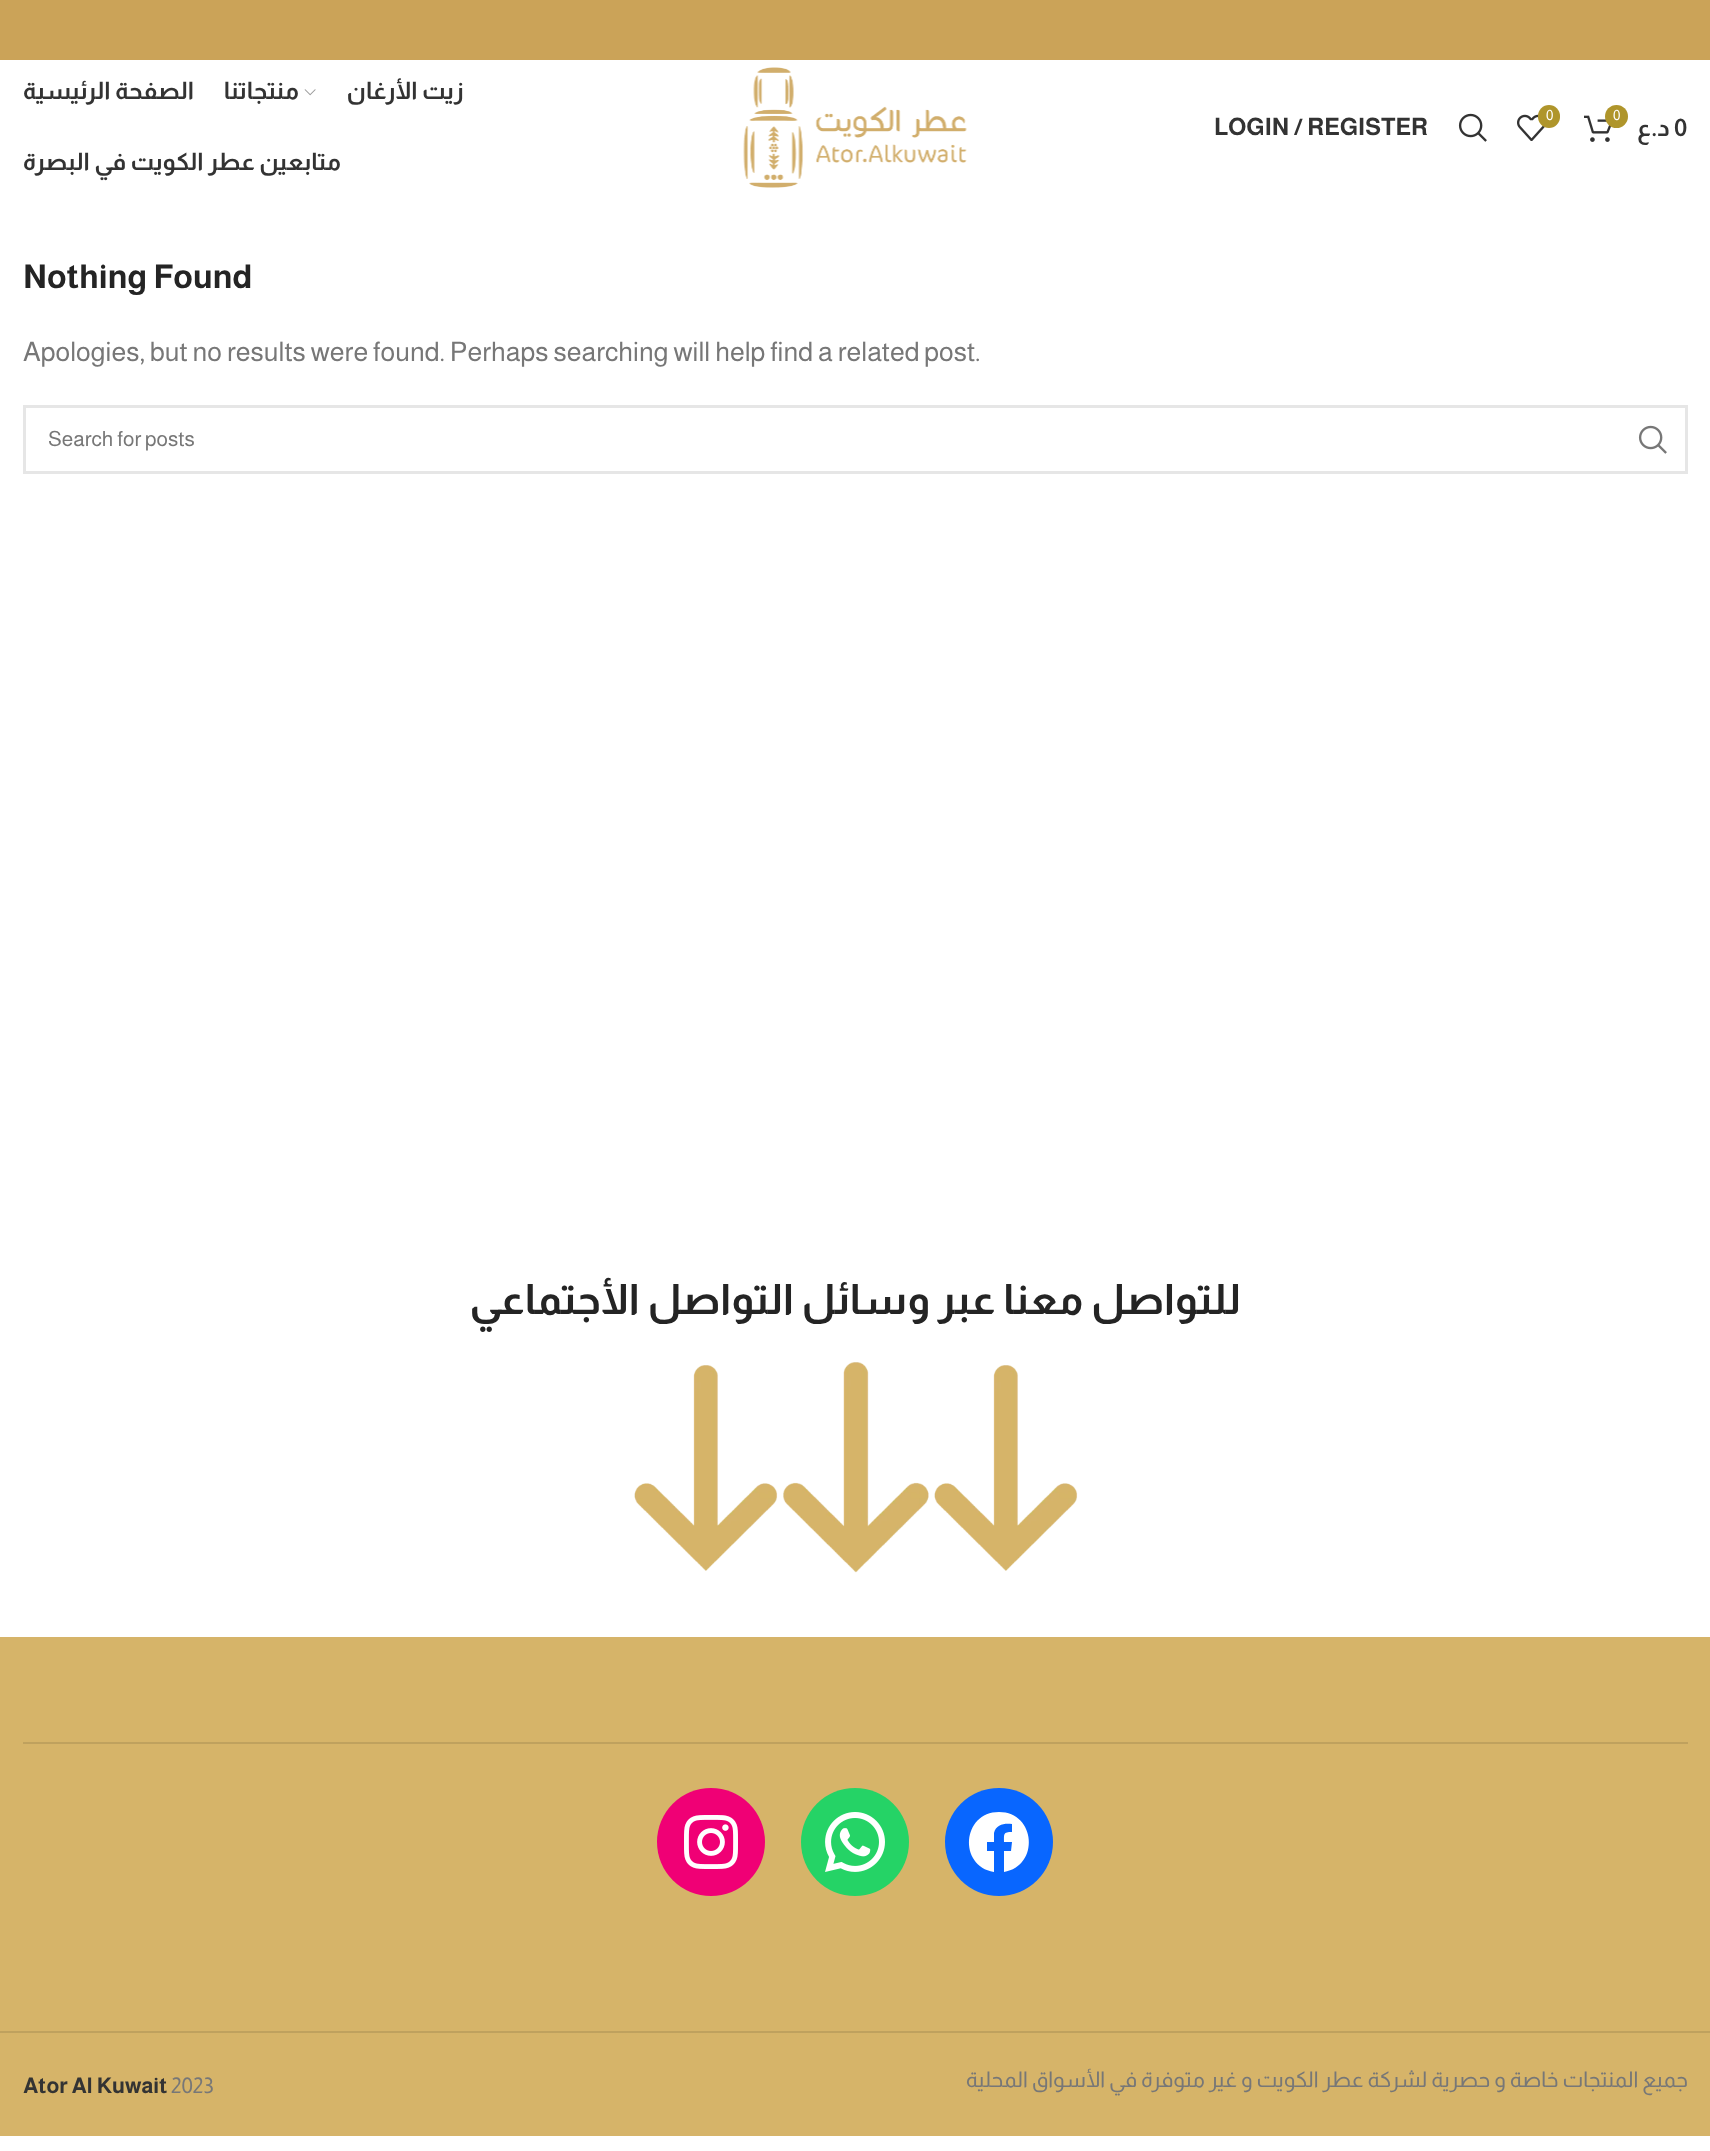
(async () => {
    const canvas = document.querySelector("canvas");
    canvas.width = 1710;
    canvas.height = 2151;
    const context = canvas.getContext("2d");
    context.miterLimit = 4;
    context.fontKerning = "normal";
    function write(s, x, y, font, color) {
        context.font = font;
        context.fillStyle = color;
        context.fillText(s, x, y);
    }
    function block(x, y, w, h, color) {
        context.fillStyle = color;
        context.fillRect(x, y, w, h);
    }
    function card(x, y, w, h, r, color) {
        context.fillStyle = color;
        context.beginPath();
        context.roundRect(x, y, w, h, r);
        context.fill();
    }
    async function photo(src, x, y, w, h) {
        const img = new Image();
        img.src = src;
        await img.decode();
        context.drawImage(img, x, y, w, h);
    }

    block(0, 0, 1710, 2151, "rgb(255, 255, 255)");
    block(0, 0, 1710, 60, "rgb(203, 163, 88)");
    await photo("media/1.png", 1584, 115, 28, 27);
    context.fillStyle = "rgb(175, 149, 43)";
    context.beginPath();
    context.arc(1616.5, 116.5, 11.5, 0, Math.PI * 2);
    context.fill();
    write("0", 1613, 120, "14px Almarai", "rgb(255, 255, 255)");
    write("0", 1674, 136, "bold 24px Almarai", "rgb(51, 51, 51)");
    context.direction = "rtl";
    write("د.ع", 1670, 136, "bold 24px Almarai", "rgb(51, 51, 51)");
    await photo("media/2.png", 1517, 114, 28, 27);
    card(1538, 105, 22, 23, 11, "rgb(175, 149, 43)");
    context.direction = "ltr";
    write("0", 1546, 120, "14px Almarai", "rgb(255, 255, 255)");
    await photo("media/3.png", 1458, 113, 29, 29);
    write("LOGIN / REGISTER", 1214, 135, "bold 24px Almarai", "rgb(51, 51, 51)");
    await photo("media/4.png", 743, 67, 224, 121);
    context.direction = "rtl";
    write("زيت الأرغان", 464, 99, "bold 24px Almarai", "rgb(51, 51, 51)");
    await photo("media/5.png", 304, 89, 12, 7);
    write("منتجاتنا", 299, 99, "bold 24px Almarai", "rgb(51, 51, 51)");
    write("الصفحة الرئيسية", 194, 99, "bold 24px Almarai", "rgb(51, 51, 51)");
    write("متابعين عطر الكويت في البصرة", 341, 170, "bold 24px Almarai", "rgb(51, 51, 51)");
    context.direction = "ltr";
    write("Nothing Found", 23, 288, "bold 33px Almarai", "rgb(36, 36, 36)");
    write("Apologies, but no results were found. Perhaps searching will help find a related post.", 23, 361, "27px Almarai", "rgb(119, 119, 119)");
    context.strokeStyle = "rgb(230, 230, 230)";
    context.lineWidth = 3;
    context.strokeRect(24.5, 406.5, 1662, 66);
    await photo("media/6.png", 1638, 425, 29, 29);
    write("Search for posts", 48, 446, "21px Almarai", "rgb(119, 119, 119)");
    context.direction = "rtl";
    write("للتواصل معنا عبر وسائل التواصل الأجتماعي", 1241, 1314, "bold 42px Almarai", "rgb(36, 36, 36)");
    await photo("media/7.png", 934, 1365, 144, 206);
    await photo("media/8.png", 783, 1362, 146, 211);
    await photo("media/7.png", 634, 1365, 144, 206);
    block(0, 1637, 1710, 499, "rgb(214, 180, 105)");
    block(23, 1742, 1665, 2, "rgb(191, 161, 94)");
    context.fillStyle = "rgb(8, 102, 255)";
    context.beginPath();
    context.arc(999, 1842, 54, 0, Math.PI * 2);
    context.fill();
    context.fillStyle = "rgb(255, 255, 255)";
    context.beginPath();
    context.moveTo(999, 1812);
    context.bezierCurveTo(962, 1812, 958, 1866, 994, 1872);
    context.lineTo(994, 1851);
    context.lineTo(987, 1851);
    context.lineTo(987, 1842);
    context.lineTo(994, 1842);
    context.lineTo(994, 1833);
    context.bezierCurveTo(996, 1824, 1005, 1823, 1012, 1824);
    context.lineTo(1012, 1832);
    context.bezierCurveTo(1003, 1832, 1004, 1834, 1004, 1842);
    context.lineTo(1012, 1842);
    context.lineTo(1011, 1851);
    context.lineTo(1004, 1851);
    context.lineTo(1004, 1872);
    context.bezierCurveTo(1040, 1866, 1036, 1812, 999, 1812);
    context.closePath();
    context.fill();
    context.fillStyle = "rgb(37, 211, 102)";
    context.beginPath();
    context.arc(855, 1842, 54, 0, Math.PI * 2);
    context.fill();
    await photo("media/9.png", 825, 1812, 60, 60);
    context.fillStyle = "rgb(240, 0, 117)";
    context.beginPath();
    context.arc(711, 1842, 54, 0, Math.PI * 2);
    context.fill();
    await photo("media/10.png", 684, 1815, 54, 54);
    block(0, 2031, 1710, 2, "rgb(191, 161, 94)");
    write("جميع المنتجات خاصة و حصرية لشركة عطر الكويت و غير متوفرة في الأسواق المحلية", 1688, 2087, "21.6px Almarai", "rgb(119, 119, 119)");
    context.direction = "ltr";
    write("2023", 171, 2093, "21.6px Almarai", "rgb(119, 119, 119)");
    write("Ator Al Kuwait", 23, 2093, "bold 21.6px Almarai", "rgb(51, 51, 51)");
})();
